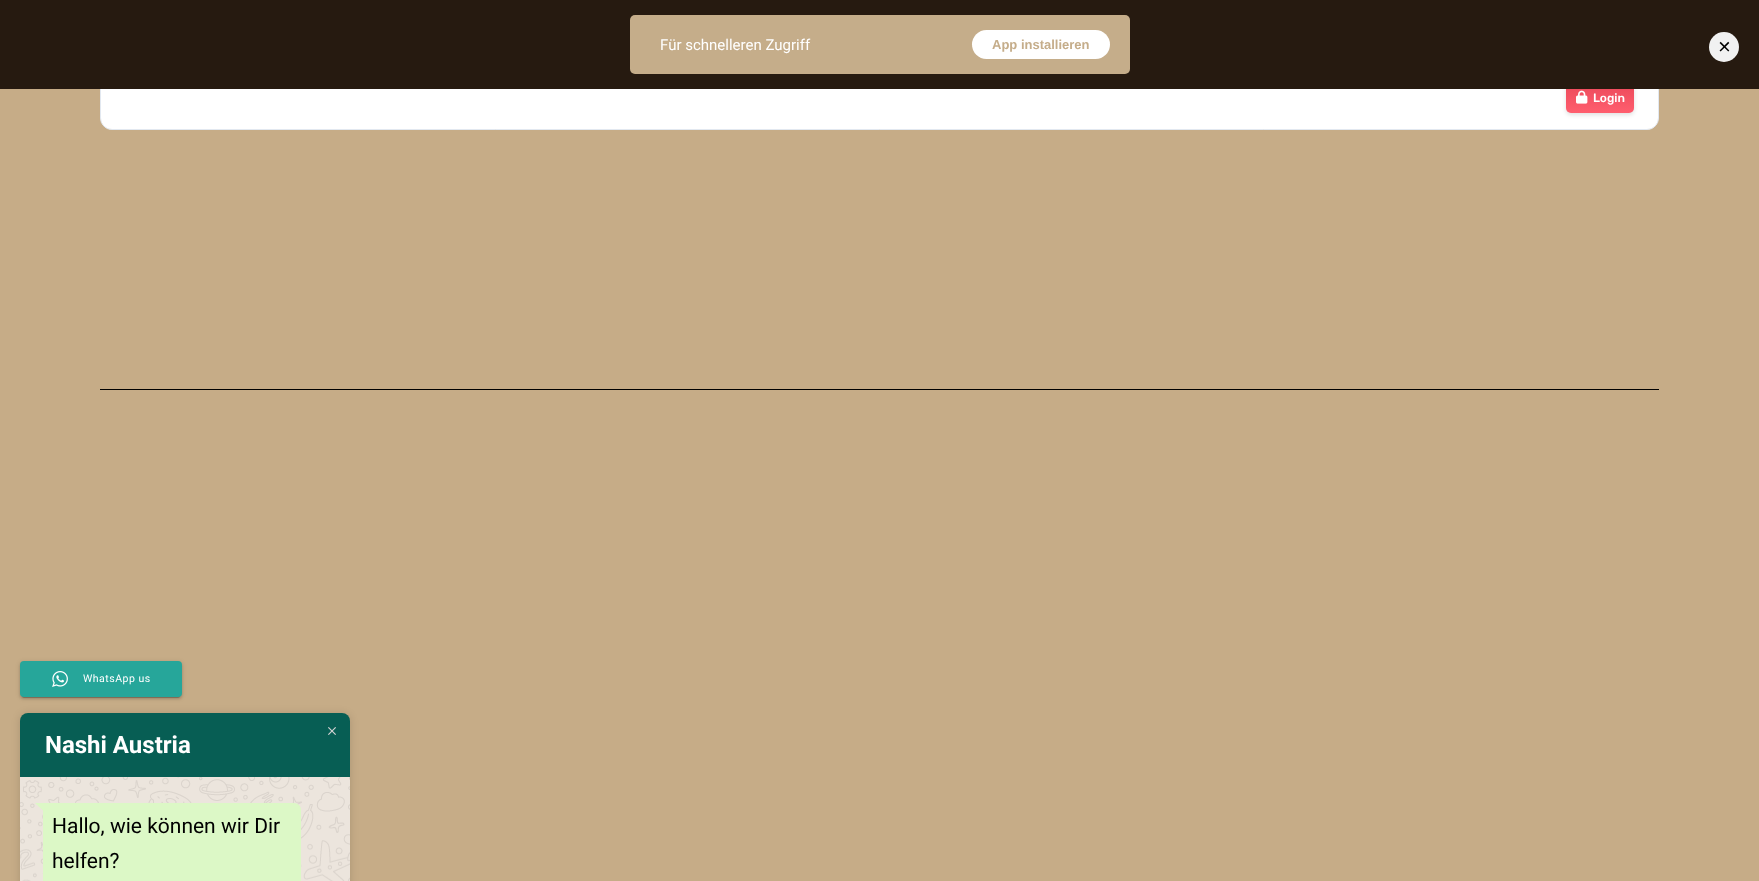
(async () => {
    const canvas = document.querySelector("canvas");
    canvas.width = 1759;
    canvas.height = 881;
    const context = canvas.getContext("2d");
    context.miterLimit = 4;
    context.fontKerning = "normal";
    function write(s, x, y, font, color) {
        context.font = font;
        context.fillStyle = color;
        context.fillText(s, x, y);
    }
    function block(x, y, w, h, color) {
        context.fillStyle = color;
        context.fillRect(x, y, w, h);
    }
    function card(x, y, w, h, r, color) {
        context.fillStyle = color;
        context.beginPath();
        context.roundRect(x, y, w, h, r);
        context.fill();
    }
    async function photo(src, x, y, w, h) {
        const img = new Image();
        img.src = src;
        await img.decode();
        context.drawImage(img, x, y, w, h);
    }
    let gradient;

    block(0, 0, 1759, 881, "rgb(198, 172, 135)");
    context.fillStyle = "rgb(255, 255, 255)";
    context.beginPath();
    context.roundRect(100.5, 0.5, 1558, 129, 11.5);
    context.fill();
    context.strokeStyle = "rgb(226, 232, 240)";
    context.stroke();
    context.fillStyle = "rgba(0, 0, 0, 0.12)";
    context.filter = "blur(2px)";
    context.beginPath();
    context.roundRect(1566, 85, 68, 30, 5);
    context.fill();
    context.filter = "none";
    card(1566, 83, 68, 30, 5, "rgb(255, 80, 98)");
    gradient = context.createLinearGradient(1600, 83, 1600, 113);
    gradient.addColorStop(0, "rgba(0, 0, 0, 0.08)");
    gradient.addColorStop(1, "rgba(255, 255, 255, 0.08)");
    context.fillStyle = gradient;
    context.beginPath();
    context.roundRect(1566, 83, 68, 30, 5);
    context.fill();
    block(0, 0, 1759, 89, "rgb(38, 26, 16)");
    card(630, 15, 500, 59, 5, "rgb(197, 173, 138)");
    write("Für schnelleren Zugriff", 660, 50, "15px Roboto", "rgb(255, 255, 255)");
    card(972, 30, 138, 29, 14.5, "rgb(255, 255, 255)");
    write("App installieren", 992, 49, "bold 13px Liberation Sans", "rgb(197, 173, 138)");
    context.fillStyle = "rgb(241, 241, 241)";
    context.beginPath();
    context.arc(1724, 47, 15, 0, Math.PI * 2);
    context.fill();
    write("×", 1718, 54, "22px Liberation Sans", "rgb(0, 0, 0)");
    await photo("media/1.png", 1576, 90, 12, 14);
    write("Login", 1593, 102, "500 12px Rubik", "rgb(255, 255, 255)");
    block(100, 389, 1559, 1, "rgb(0, 0, 0)");
    context.fillStyle = "rgba(0, 0, 0, 0.2)";
    context.filter = "blur(0.5px)";
    context.beginPath();
    context.roundRect(22, 666, 158, 32, 2);
    context.fill();
    context.filter = "none";
    context.fillStyle = "rgba(0, 0, 0, 0.12)";
    context.filter = "blur(2.5px)";
    context.beginPath();
    context.roundRect(20, 662, 162, 36, 4);
    context.fill();
    context.filter = "none";
    context.fillStyle = "rgba(0, 0, 0, 0.14)";
    context.filter = "blur(1px)";
    context.beginPath();
    context.roundRect(20, 663, 162, 36, 4);
    context.fill();
    context.filter = "none";
    card(20, 661, 162, 36, 4, "rgb(38, 166, 154)");
    await photo("media/2.png", 52, 671, 16, 16);
    context.letterSpacing = "0.5px";
    write("WhatsApp us", 83, 682, "10.5px Roboto", "rgb(255, 255, 255)");
    context.fillStyle = "rgba(0, 0, 0, 0.14)";
    context.filter = "blur(4.5px)";
    context.beginPath();
    context.roundRect(20, 714, 330, 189, 8);
    context.fill();
    context.filter = "none";
    context.fillStyle = "rgb(7, 94, 84)";
    context.beginPath();
    context.roundRect(20, 713, 330, 65, [8, 8, 0, 0]);
    context.fill();
    await photo("media/3.png", 328, 727, 8, 8);
    context.letterSpacing = "0px";
    write("Nashi Austria", 45, 753, "bold 24px Roboto", "rgb(255, 255, 255)");
    block(20, 777, 330, 104, "rgb(236, 229, 221)");
    await photo("media/4.png", 20, 777, 330, 104);
    context.fillStyle = "rgb(220, 248, 198)";
    context.beginPath();
    context.moveTo(43, 803);
    context.lineTo(294, 803);
    context.bezierCurveTo(298, 803, 301, 806, 301, 810);
    context.lineTo(301, 881);
    context.bezierCurveTo(301, 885, 298, 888, 294, 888);
    context.lineTo(50, 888);
    context.bezierCurveTo(46, 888, 43, 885, 43, 881);
    context.closePath();
    context.fill();
    context.beginPath();
    context.moveTo(44, 803);
    context.lineTo(44, 811.5);
    context.lineTo(35, 803);
    context.closePath();
    context.fill();
    write("Hallo, wie können wir Dir", 52, 833, "21px Roboto", "rgb(0, 0, 0)");
    write("helfen?", 52, 868, "21px Roboto", "rgb(0, 0, 0)");
})();
